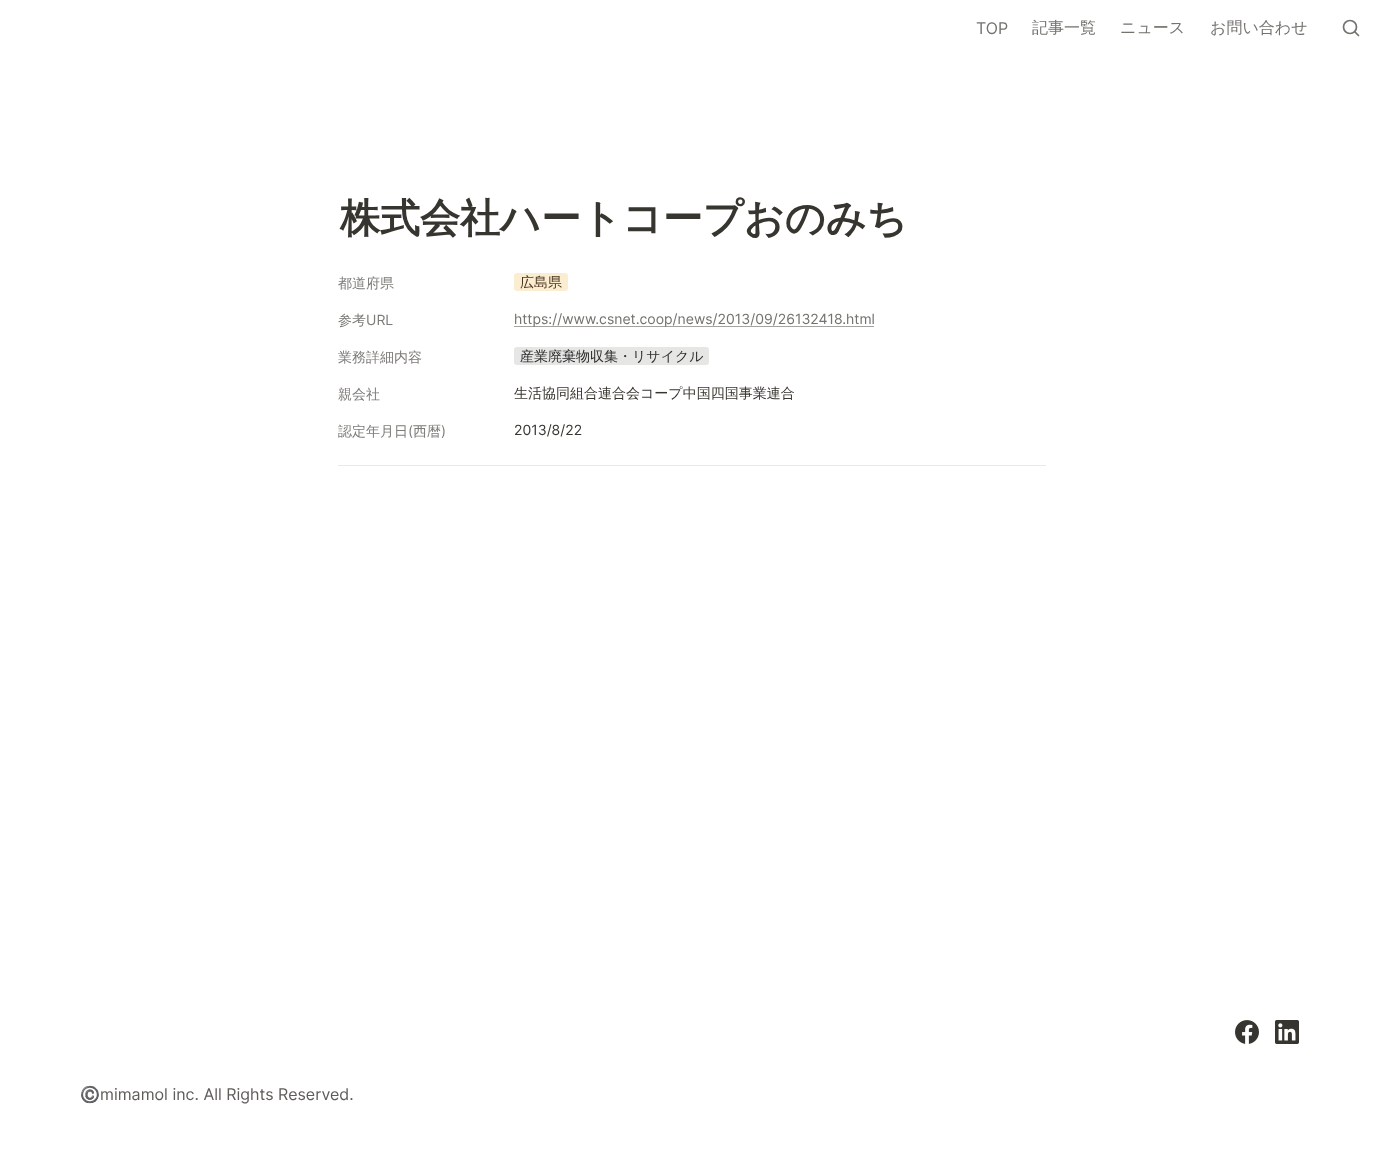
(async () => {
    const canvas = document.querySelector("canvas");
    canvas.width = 1383;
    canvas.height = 1172;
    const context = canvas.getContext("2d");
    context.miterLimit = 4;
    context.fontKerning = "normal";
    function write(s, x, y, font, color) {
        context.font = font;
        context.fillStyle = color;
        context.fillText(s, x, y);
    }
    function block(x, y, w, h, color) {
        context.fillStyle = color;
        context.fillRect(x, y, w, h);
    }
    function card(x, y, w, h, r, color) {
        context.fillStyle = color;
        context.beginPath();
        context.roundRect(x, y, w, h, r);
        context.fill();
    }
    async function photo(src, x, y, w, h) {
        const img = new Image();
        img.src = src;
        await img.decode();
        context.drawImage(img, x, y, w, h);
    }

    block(0, 0, 1383, 1172, "rgb(255, 255, 255)");
    write("TOP", 976, 34, "16px Inter", "rgb(115, 114, 109)");
    write("記事一覧", 1032, 33, "500 16px WenQuanYi Zen Hei", "rgb(115, 114, 109)");
    write("ニュース", 1120, 33, "500 16px WenQuanYi Zen Hei", "rgb(115, 114, 109)");
    write("お問い合わせ", 1210, 33, "500 16px WenQuanYi Zen Hei", "rgb(115, 114, 109)");
    context.beginPath();
    context.arc(1350, 27, 6.5, 0, Math.PI * 2);
    context.strokeStyle = "rgb(115, 114, 109)";
    context.lineWidth = 1.7;
    context.stroke();
    context.beginPath();
    context.moveTo(1358.5, 35.5);
    context.lineTo(1355, 32);
    context.lineCap = "round";
    context.lineJoin = "round";
    context.stroke();
    write("株式会社ハートコープおのみち", 340, 232, "bold 40px WenQuanYi Zen Hei", "rgb(55, 53, 47)");
    write("都道府県", 338, 288, "500 14px WenQuanYi Zen Hei", "rgb(125, 124, 120)");
    card(514, 273, 54, 18, 3, "rgb(251, 238, 208)");
    write("広島県", 520, 287, "500 14px WenQuanYi Zen Hei", "rgb(75, 51, 32)");
    write("参考", 338, 325, "500 14px WenQuanYi Zen Hei", "rgb(125, 124, 120)");
    write("URL", 366, 325, "14px Inter", "rgb(125, 124, 120)");
    block(514, 326, 360, 1, "rgb(164, 163, 161)");
    write("https://www.csnet.coop/news/2013/09/26132418.html", 514, 324, "14px Inter", "rgb(115, 114, 109)");
    write("業務詳細内容", 338, 362, "500 14px WenQuanYi Zen Hei", "rgb(125, 124, 120)");
    card(514, 347, 195, 18, 3, "rgb(230, 230, 229)");
    write("産業廃棄物収集・リサイクル", 520, 361, "500 14px WenQuanYi Zen Hei", "rgb(47, 46, 45)");
    write("親会社", 338, 399, "500 14px WenQuanYi Zen Hei", "rgb(125, 124, 120)");
    write("生活協同組合連合会コープ中国四国事業連合", 514, 398, "500 14px WenQuanYi Zen Hei", "rgb(55, 53, 47)");
    context.save();
    context.beginPath();
    context.rect(338, 420, 108, 21);
    context.clip();
    write("認定年月日", 338, 436, "500 14px WenQuanYi Zen Hei", "rgb(125, 124, 120)");
    context.restore();
    write("(", 408, 436, "14px Inter", "rgb(125, 124, 120)");
    write("西暦", 413, 436, "500 14px WenQuanYi Zen Hei", "rgb(125, 124, 120)");
    write(")", 441, 436, "14px Inter", "rgb(125, 124, 120)");
    write("2013/8/22", 514, 435, "14px Inter", "rgb(55, 53, 47)");
    block(338, 465, 708, 1, "rgb(233, 233, 231)");
    await photo("media/1.png", 1235, 1020, 24, 24);
    await photo("media/2.png", 1275, 1020, 24, 24);
    write("©️", 80, 1100, "16px Noto Color Emoji", "rgb(95, 93, 89)");
    write("mimamol inc. All Rights Reserved.", 100, 1100, "16px Inter", "rgb(95, 93, 89)");
})();
